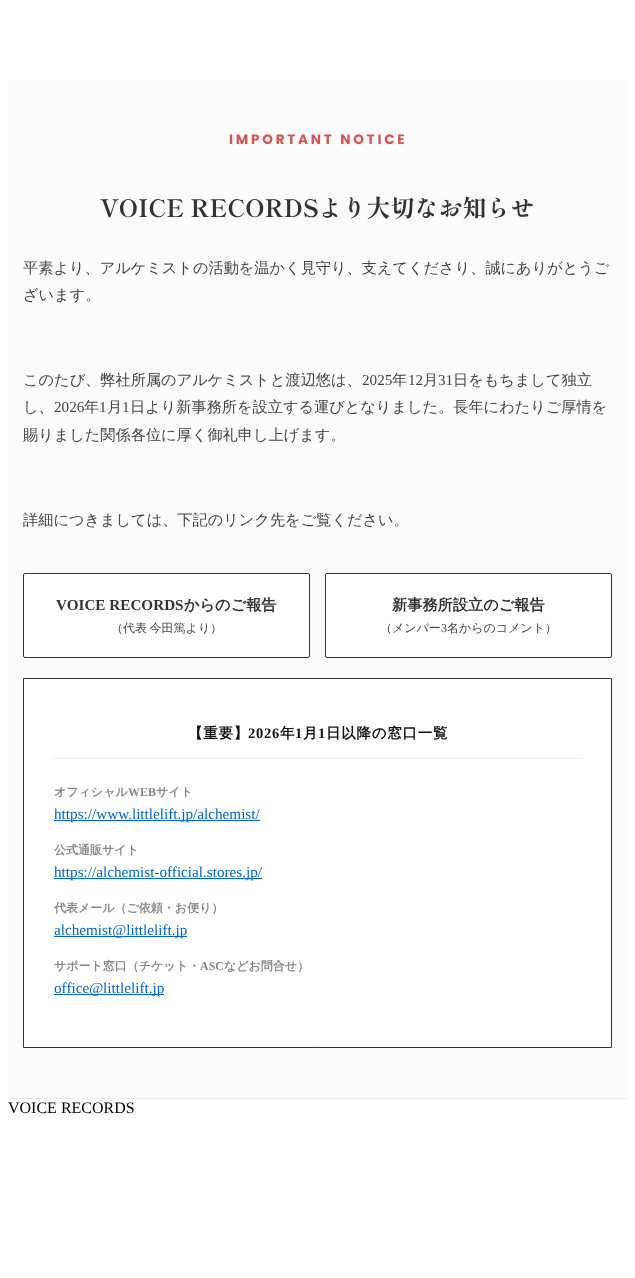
(async () => {
    const canvas = document.querySelector("canvas");
    canvas.width = 635;
    canvas.height = 1278;
    const context = canvas.getContext("2d");
    context.miterLimit = 4;
    context.fontKerning = "normal";
    function write(s, x, y, font, color) {
        context.font = font;
        context.fillStyle = color;
        context.fillText(s, x, y);
    }
    function block(x, y, w, h, color) {
        context.fillStyle = color;
        context.fillRect(x, y, w, h);
    }

    block(0, 0, 635, 1278, "rgb(255, 255, 255)");
    block(8, 80, 619, 1018, "rgb(252, 252, 252)");
    block(8, 1098, 619, 1, "rgb(238, 238, 238)");
    context.letterSpacing = "2.75px";
    write("IMPORTANT NOTICE", 229, 144, "bold 13.6px Poppins", "rgb(217, 83, 79)");
    context.letterSpacing = "0px";
    write("VOICE RECORDSより大切なお知らせ", 100, 217, "bold 24px Shippori Mincho", "rgb(51, 51, 51)");
    write("平素より、アルケミストの活動を温かく見守り、支えてくださり、誠にありがとうご", 23, 273, "500 15.2px WenQuanYi Zen Hei", "rgb(68, 68, 68)");
    write("ざいます。", 23, 300, "500 15.2px WenQuanYi Zen Hei", "rgb(68, 68, 68)");
    write("このたび、弊社所属のアルケミストと渡辺悠は、", 23, 385, "500 15.2px WenQuanYi Zen Hei", "rgb(68, 68, 68)");
    write("2025", 362, 385, "15.2px Liberation Serif", "rgb(68, 68, 68)");
    write("年", 392, 385, "500 15.2px WenQuanYi Zen Hei", "rgb(68, 68, 68)");
    write("12", 408, 385, "15.2px Liberation Serif", "rgb(68, 68, 68)");
    write("月", 423, 385, "500 15.2px WenQuanYi Zen Hei", "rgb(68, 68, 68)");
    write("31", 438, 385, "15.2px Liberation Serif", "rgb(68, 68, 68)");
    write("日をもちまして独立", 453, 385, "500 15.2px WenQuanYi Zen Hei", "rgb(68, 68, 68)");
    write("し、", 23, 412, "500 15.2px WenQuanYi Zen Hei", "rgb(68, 68, 68)");
    write("2026", 54, 412, "15.2px Liberation Serif", "rgb(68, 68, 68)");
    write("年", 84, 412, "500 15.2px WenQuanYi Zen Hei", "rgb(68, 68, 68)");
    write("1", 99, 412, "15.2px Liberation Serif", "rgb(68, 68, 68)");
    write("月", 107, 412, "500 15.2px WenQuanYi Zen Hei", "rgb(68, 68, 68)");
    write("1", 122, 412, "15.2px Liberation Serif", "rgb(68, 68, 68)");
    write("日より新事務所を設立する運びとなりました。長年にわたりご厚情を", 130, 412, "500 15.2px WenQuanYi Zen Hei", "rgb(68, 68, 68)");
    write("賜りました関係各位に厚く御礼申し上げます。", 23, 440, "500 15.2px WenQuanYi Zen Hei", "rgb(68, 68, 68)");
    write("詳細につきましては、下記のリンク先をご覧ください。", 23, 525, "500 15.2px WenQuanYi Zen Hei", "rgb(68, 68, 68)");
    context.fillStyle = "rgb(255, 255, 255)";
    context.beginPath();
    context.roundRect(23.5, 573.5, 286, 84, 1.5);
    context.fill();
    context.strokeStyle = "rgb(51, 51, 51)";
    context.stroke();
    write("VOICE RECORDS", 56, 610, "bold 15.2px Liberation Serif", "rgb(51, 51, 51)");
    write("からのご報告", 184, 610, "bold 15.2px WenQuanYi Zen Hei", "rgb(51, 51, 51)");
    context.wordSpacing = "-1px";
    write("（代表 今田篤より）", 111, 632, "500 12px WenQuanYi Zen Hei", "rgb(68, 68, 68)");
    context.fillStyle = "rgb(255, 255, 255)";
    context.beginPath();
    context.roundRect(325.5, 573.5, 286, 84, 1.5);
    context.fill();
    context.stroke();
    context.wordSpacing = "0px";
    write("新事務所設立のご報告", 392, 610, "bold 15.2px WenQuanYi Zen Hei", "rgb(51, 51, 51)");
    write("（メンバー", 380, 632, "500 12px WenQuanYi Zen Hei", "rgb(68, 68, 68)");
    write("3", 441, 632, "12px Liberation Serif", "rgb(68, 68, 68)");
    write("名からのコメント）", 447, 632, "500 12px WenQuanYi Zen Hei", "rgb(68, 68, 68)");
    context.fillStyle = "rgb(255, 255, 255)";
    context.beginPath();
    context.rect(23.5, 678.5, 588, 369);
    context.fill();
    context.stroke();
    block(54, 758, 527, 1, "rgb(238, 238, 238)");
    context.letterSpacing = "0.75px";
    write("【重要】", 188, 738, "bold 14.5px WenQuanYi Zen Hei", "rgb(17, 17, 17)");
    write("2026", 248, 738, "bold 14.5px Liberation Serif", "rgb(17, 17, 17)");
    write("年", 280, 738, "bold 14.5px WenQuanYi Zen Hei", "rgb(17, 17, 17)");
    write("1", 295, 738, "bold 14.5px Liberation Serif", "rgb(17, 17, 17)");
    write("月", 303, 738, "bold 14.5px WenQuanYi Zen Hei", "rgb(17, 17, 17)");
    write("1", 318, 738, "bold 14.5px Liberation Serif", "rgb(17, 17, 17)");
    write("日以降の窓口一覧", 326, 738, "bold 14.5px WenQuanYi Zen Hei", "rgb(17, 17, 17)");
    context.letterSpacing = "0px";
    write("オフィシャル", 54, 796, "bold 12px WenQuanYi Zen Hei", "rgb(136, 136, 136)");
    write("WEB", 128, 796, "bold 12px Liberation Serif", "rgb(136, 136, 136)");
    write("サイト", 156, 796, "bold 12px WenQuanYi Zen Hei", "rgb(136, 136, 136)");
    block(54, 820, 206, 1, "rgb(0, 102, 204)");
    write("https://www.littlelift.jp/alchemist/", 54, 819, "15.2px Liberation Serif", "rgb(0, 102, 204)");
    write("公式通販サイト", 54, 854, "bold 12px WenQuanYi Zen Hei", "rgb(136, 136, 136)");
    block(54, 878, 208, 1, "rgb(0, 102, 204)");
    write("https://alchemist-official.stores.jp/", 54, 877, "15.2px Liberation Serif", "rgb(0, 102, 204)");
    write("代表メール（ご依頼・お便り）", 54, 912, "bold 12px WenQuanYi Zen Hei", "rgb(136, 136, 136)");
    block(54, 936, 133, 1, "rgb(0, 102, 204)");
    write("alchemist@littlelift.jp", 54, 935, "15.2px Liberation Serif", "rgb(0, 102, 204)");
    write("サポート窓口（チケット・", 54, 970, "bold 12px WenQuanYi Zen Hei", "rgb(136, 136, 136)");
    write("ASC", 200, 970, "bold 12px Liberation Serif", "rgb(136, 136, 136)");
    write("などお問合せ）", 224, 970, "bold 12px WenQuanYi Zen Hei", "rgb(136, 136, 136)");
    block(54, 994, 110, 1, "rgb(0, 102, 204)");
    write("office@littlelift.jp", 54, 993, "15.2px Liberation Serif", "rgb(0, 102, 204)");
    write("VOICE RECORDS", 8, 1113, "16px Liberation Serif", "rgb(0, 0, 0)");
})();
